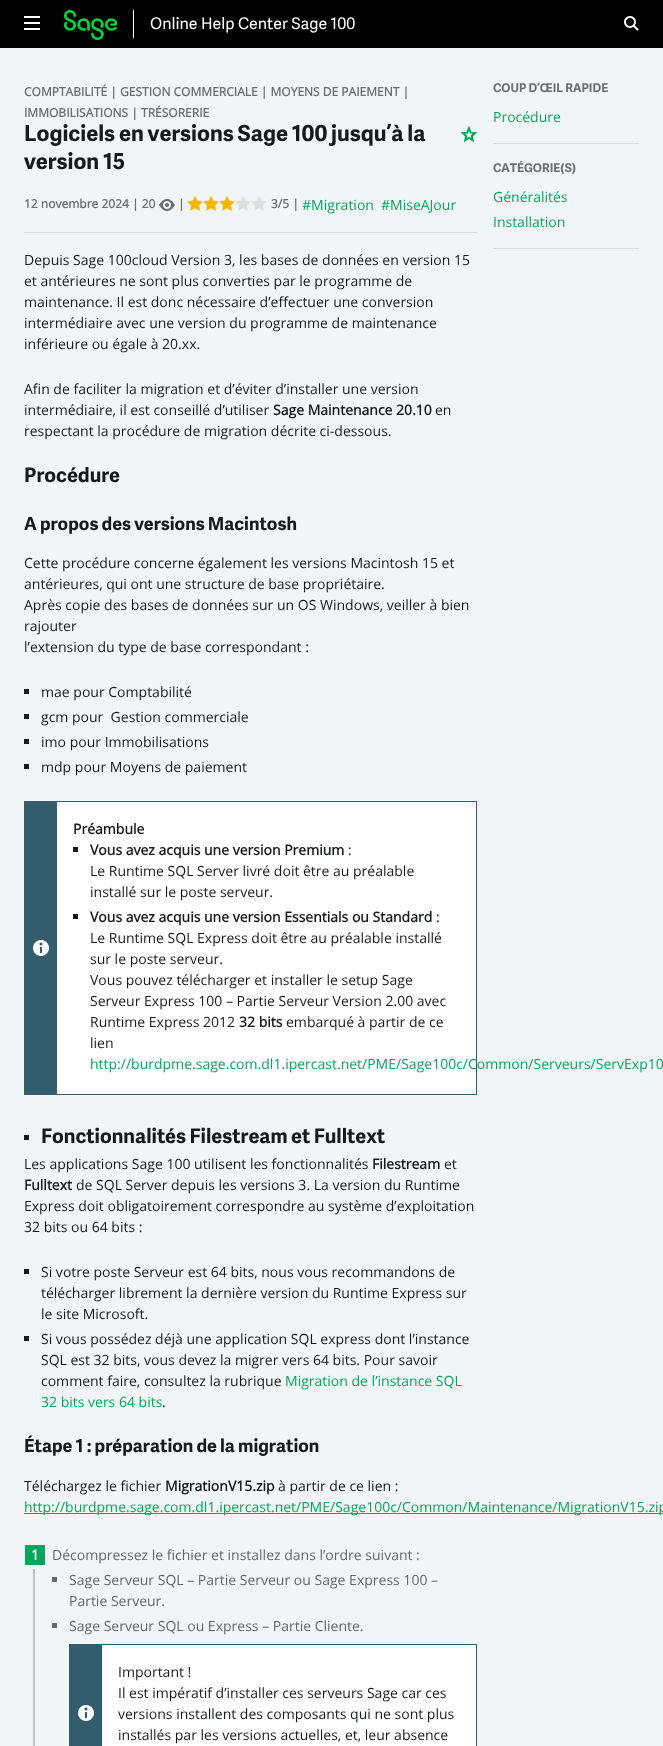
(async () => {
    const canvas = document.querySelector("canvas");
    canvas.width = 663;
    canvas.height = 1746;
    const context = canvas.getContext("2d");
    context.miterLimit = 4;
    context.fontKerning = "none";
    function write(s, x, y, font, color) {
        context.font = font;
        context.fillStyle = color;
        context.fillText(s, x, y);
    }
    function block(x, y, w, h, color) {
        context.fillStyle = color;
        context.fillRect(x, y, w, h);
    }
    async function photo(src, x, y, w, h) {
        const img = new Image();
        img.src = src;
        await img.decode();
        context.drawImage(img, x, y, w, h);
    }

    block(0, 0, 663, 1746, "rgb(242, 245, 246)");
    block(0, 0, 663, 48, "rgb(0, 0, 0)");
    await photo("media/1.png", 24, 16, 16, 14);
    await photo("media/2.png", 64, 10, 53, 30);
    block(133, 10, 1, 28, "rgb(255, 255, 255)");
    write("Online Help Center Sage 100", 150, 29, "16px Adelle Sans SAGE", "rgb(255, 255, 255)");
    await photo("media/3.png", 624, 16, 15, 15);
    write("COUP D’ŒIL RAPIDE", 493, 92, "bold 12px Adelle Sans SAGE", "rgb(109, 110, 111)");
    write("Procédure", 493, 122, "14px Open Sans", "rgb(6, 165, 92)");
    block(493, 143, 146, 1, "rgb(218, 221, 221)");
    write("CATÉGORIE(S)", 493, 172, "bold 12px Adelle Sans SAGE", "rgb(109, 110, 111)");
    write("Généralités", 493, 202, "14px Open Sans", "rgb(6, 165, 92)");
    write("Installation", 493, 227, "14px Open Sans", "rgb(6, 165, 92)");
    block(493, 248, 146, 1, "rgb(218, 221, 221)");
    write("COMPTABILITÉ | GESTION COMMERCIALE | MOYENS DE PAIEMENT |", 24, 96, "bold 12px Open Sans", "rgb(109, 110, 111)");
    write("IMMOBILISATIONS | TRÉSORERIE", 24, 117, "bold 12px Open Sans", "rgb(109, 110, 111)");
    write("Logiciels en versions Sage 100 jusqu’à la", 24, 141, "bold 22px Adelle Sans SAGE", "rgb(24, 25, 25)");
    write("version 15", 24, 169, "bold 22px Adelle Sans SAGE", "rgb(24, 25, 25)");
    await photo("media/4.png", 461, 126, 16, 16);
    write("12 novembre 2024 | 20", 24, 208, "bold 12px Open Sans", "rgb(109, 110, 111)");
    await photo("media/5.png", 159, 199, 16, 12);
    write("|", 178, 208, "bold 12px Open Sans", "rgb(109, 110, 111)");
    await photo("media/6.png", 187, 196, 80, 15);
    await photo("media/7.png", 187, 196, 48, 15);
    write("3/5 |", 271, 208, "bold 12px Open Sans", "rgb(109, 110, 111)");
    write("#Migration", 302, 210, "14px Open Sans", "rgb(6, 165, 92)");
    write("#MiseAJour", 381, 210, "14px Open Sans", "rgb(6, 165, 92)");
    block(24, 232, 453, 1, "rgb(218, 221, 221)");
    write("Depuis Sage 100cloud Version 3, les bases de données en version 15", 24, 265, "14px Open Sans", "rgb(24, 25, 25)");
    write("et antérieures ne sont plus converties par le programme de", 24, 286, "14px Open Sans", "rgb(24, 25, 25)");
    write("maintenance. Il est donc nécessaire d’effectuer une conversion", 24, 307, "14px Open Sans", "rgb(24, 25, 25)");
    write("intermédiaire avec une version du programme de maintenance", 24, 328, "14px Open Sans", "rgb(24, 25, 25)");
    write("inférieure ou égale à 20.xx.", 24, 349, "14px Open Sans", "rgb(24, 25, 25)");
    write("Afin de faciliter la migration et d’éviter d’installer une version", 24, 394, "14px Open Sans", "rgb(24, 25, 25)");
    write("intermédiaire, il est conseillé d’utiliser", 24, 415, "14px Open Sans", "rgb(24, 25, 25)");
    write("Sage Maintenance 20.10", 273, 415, "bold 14px Open Sans", "rgb(24, 25, 25)");
    write("en", 435, 415, "14px Open Sans", "rgb(24, 25, 25)");
    write("respectant la procédure de migration décrite ci-dessous.", 24, 436, "14px Open Sans", "rgb(24, 25, 25)");
    write("Procédure", 24, 482, "bold 20px Adelle Sans SAGE", "rgb(24, 25, 25)");
    write("A propos des versions Macintosh", 24, 530, "bold 18px Adelle Sans SAGE", "rgb(24, 25, 25)");
    write("Cette procédure concerne également les versions Macintosh 15 et", 24, 568, "14px Open Sans", "rgb(24, 25, 25)");
    write("antérieures, qui ont une structure de base propriétaire.", 24, 589, "14px Open Sans", "rgb(24, 25, 25)");
    write("Après copie des bases de données sur un OS Windows, veiller à bien", 24, 610, "14px Open Sans", "rgb(24, 25, 25)");
    write("rajouter", 24, 631, "14px Open Sans", "rgb(24, 25, 25)");
    write("l’extension du type de base correspondant :", 24, 652, "14px Open Sans", "rgb(24, 25, 25)");
    block(24, 689, 5, 5, "rgb(24, 25, 25)");
    write("mae pour Comptabilité", 41, 697, "14px Open Sans", "rgb(24, 25, 25)");
    block(24, 714, 5, 5, "rgb(24, 25, 25)");
    write("gcm pour  Gestion commerciale", 41, 722, "14px Open Sans", "rgb(24, 25, 25)");
    block(24, 739, 5, 5, "rgb(24, 25, 25)");
    write("imo pour Immobilisations", 41, 747, "14px Open Sans", "rgb(24, 25, 25)");
    block(24, 764, 5, 5, "rgb(24, 25, 25)");
    write("mdp pour Moyens de paiement", 41, 772, "14px Open Sans", "rgb(24, 25, 25)");
    block(57, 802, 419, 292, "rgb(255, 255, 255)");
    context.strokeStyle = "rgb(51, 92, 109)";
    context.strokeRect(24.5, 801.5, 452, 293);
    block(25, 802, 32, 292, "rgb(51, 92, 109)");
    write("Préambule", 73, 834, "bold 14px Open Sans", "rgb(24, 25, 25)");
    await photo("media/8.png", 33, 940, 16, 16);
    block(73, 847, 5, 5, "rgb(26, 26, 26)");
    write("Vous avez acquis une version Premium", 90, 855, "bold 14px Open Sans", "rgb(24, 25, 25)");
    write(":", 348, 855, "14px Open Sans", "rgb(24, 25, 25)");
    write("Le Runtime SQL Server livré doit être au préalable", 90, 876, "14px Open Sans", "rgb(24, 25, 25)");
    write("installé sur le poste serveur.", 90, 897, "14px Open Sans", "rgb(24, 25, 25)");
    block(73, 914, 5, 5, "rgb(26, 26, 26)");
    write("Vous avez acquis une version Essentials ou Standard", 90, 922, "bold 14px Open Sans", "rgb(24, 25, 25)");
    write(":", 436, 922, "14px Open Sans", "rgb(24, 25, 25)");
    write("Le Runtime SQL Express doit être au préalable installé", 90, 943, "14px Open Sans", "rgb(24, 25, 25)");
    write("sur le poste serveur.", 90, 964, "14px Open Sans", "rgb(24, 25, 25)");
    write("Vous pouvez télécharger et installer le setup Sage", 90, 985, "14px Open Sans", "rgb(24, 25, 25)");
    write("Serveur Express 100 – Partie Serveur Version 2.00 avec", 90, 1006, "14px Open Sans", "rgb(24, 25, 25)");
    write("Runtime Express 2012", 90, 1027, "14px Open Sans", "rgb(24, 25, 25)");
    write("32 bits", 239, 1027, "bold 14px Open Sans", "rgb(24, 25, 25)");
    write("embarqué à partir de ce", 286, 1027, "14px Open Sans", "rgb(24, 25, 25)");
    write("lien", 90, 1048, "14px Open Sans", "rgb(24, 25, 25)");
    write("http://burdpme.sage.com.dl1.ipercast.net/PME/Sage100c/Common/Serveurs/ServExp10", 90, 1069, "14px Open Sans", "rgb(6, 165, 92)");
    block(24, 1135, 5, 5, "rgb(24, 25, 25)");
    write("Fonctionnalités Filestream et Fulltext", 41, 1143, "bold 20px Adelle Sans SAGE", "rgb(24, 25, 25)");
    write("Les applications Sage 100 utilisent les fonctionnalités", 24, 1169, "14px Open Sans", "rgb(24, 25, 25)");
    write("Filestream", 372, 1169, "bold 14px Open Sans", "rgb(24, 25, 25)");
    write("et", 444, 1169, "14px Open Sans", "rgb(24, 25, 25)");
    write("Fulltext", 24, 1190, "bold 14px Open Sans", "rgb(24, 25, 25)");
    write("de SQL Server depuis les versions 3. La version du Runtime", 76, 1190, "14px Open Sans", "rgb(24, 25, 25)");
    write("Express doit obligatoirement correspondre au système d’exploitation", 24, 1211, "14px Open Sans", "rgb(24, 25, 25)");
    write("32 bits ou 64 bits :", 24, 1232, "14px Open Sans", "rgb(24, 25, 25)");
    block(24, 1269, 5, 5, "rgb(24, 25, 25)");
    write("Si votre poste Serveur est 64 bits, nous vous recommandons de", 41, 1277, "14px Open Sans", "rgb(24, 25, 25)");
    write("télécharger librement la dernière version du Runtime Express sur", 41, 1298, "14px Open Sans", "rgb(24, 25, 25)");
    write("le site Microsoft.", 41, 1319, "14px Open Sans", "rgb(24, 25, 25)");
    block(24, 1336, 5, 5, "rgb(24, 25, 25)");
    write("Si vous possédez déjà une application SQL express dont l’instance", 41, 1344, "14px Open Sans", "rgb(24, 25, 25)");
    write("SQL est 32 bits, vous devez la migrer vers 64 bits. Pour savoir", 41, 1365, "14px Open Sans", "rgb(24, 25, 25)");
    write("comment faire, consultez la rubrique", 41, 1386, "14px Open Sans", "rgb(24, 25, 25)");
    write("Migration de l’instance SQL", 285, 1386, "14px Open Sans", "rgb(6, 165, 92)");
    write("32 bits vers 64 bits", 41, 1407, "14px Open Sans", "rgb(6, 165, 92)");
    write(".", 162, 1407, "14px Open Sans", "rgb(24, 25, 25)");
    write("Étape 1 : préparation de la migration", 24, 1452, "bold 18px Adelle Sans SAGE", "rgb(24, 25, 25)");
    write("Téléchargez le fichier", 24, 1491, "14px Open Sans", "rgb(24, 25, 25)");
    write("MigrationV15.zip", 165, 1491, "bold 14px Open Sans", "rgb(24, 25, 25)");
    write("à partir de ce lien :", 278, 1491, "14px Open Sans", "rgb(24, 25, 25)");
    block(24, 1513, 639, 1, "rgb(6, 165, 92)");
    write("http://burdpme.sage.com.dl1.ipercast.net/PME/Sage100c/Common/Maintenance/MigrationV15.zip", 24, 1512, "14px Open Sans", "rgb(6, 165, 92)");
    block(33, 1569, 2, 177, "rgb(194, 196, 197)");
    block(25, 1545, 20, 20, "rgb(6, 165, 92)");
    write("1", 31, 1560, "bold 14px Open Sans", "rgb(255, 255, 255)");
    write("Décompressez le fichier et installez dans l’ordre suivant :", 52, 1560, "14px Open Sans", "rgb(102, 102, 102)");
    block(52, 1577, 5, 5, "rgb(102, 102, 102)");
    write("Sage Serveur SQL – Partie Serveur ou Sage Express 100 –", 69, 1585, "14px Open Sans", "rgb(102, 102, 102)");
    write("Partie Serveur.", 69, 1606, "14px Open Sans", "rgb(102, 102, 102)");
    block(52, 1623, 5, 5, "rgb(102, 102, 102)");
    write("Sage Serveur SQL ou Express – Partie Cliente.", 69, 1631, "14px Open Sans", "rgb(102, 102, 102)");
    block(102, 1645, 374, 101, "rgb(255, 255, 255)");
    context.strokeRect(69.5, 1644.5, 407, 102);
    block(70, 1645, 32, 101, "rgb(51, 92, 109)");
    write("Important !", 118, 1677, "14px Open Sans", "rgb(24, 25, 25)");
    write("Il est impératif d’installer ces serveurs Sage car ces", 118, 1698, "14px Open Sans", "rgb(24, 25, 25)");
    await photo("media/8.png", 78, 1705, 16, 16);
    write("versions installent des composants qui ne sont plus", 118, 1719, "14px Open Sans", "rgb(24, 25, 25)");
    write("installés par les versions actuelles, et, leur absence", 118, 1740, "14px Open Sans", "rgb(24, 25, 25)");
})();
